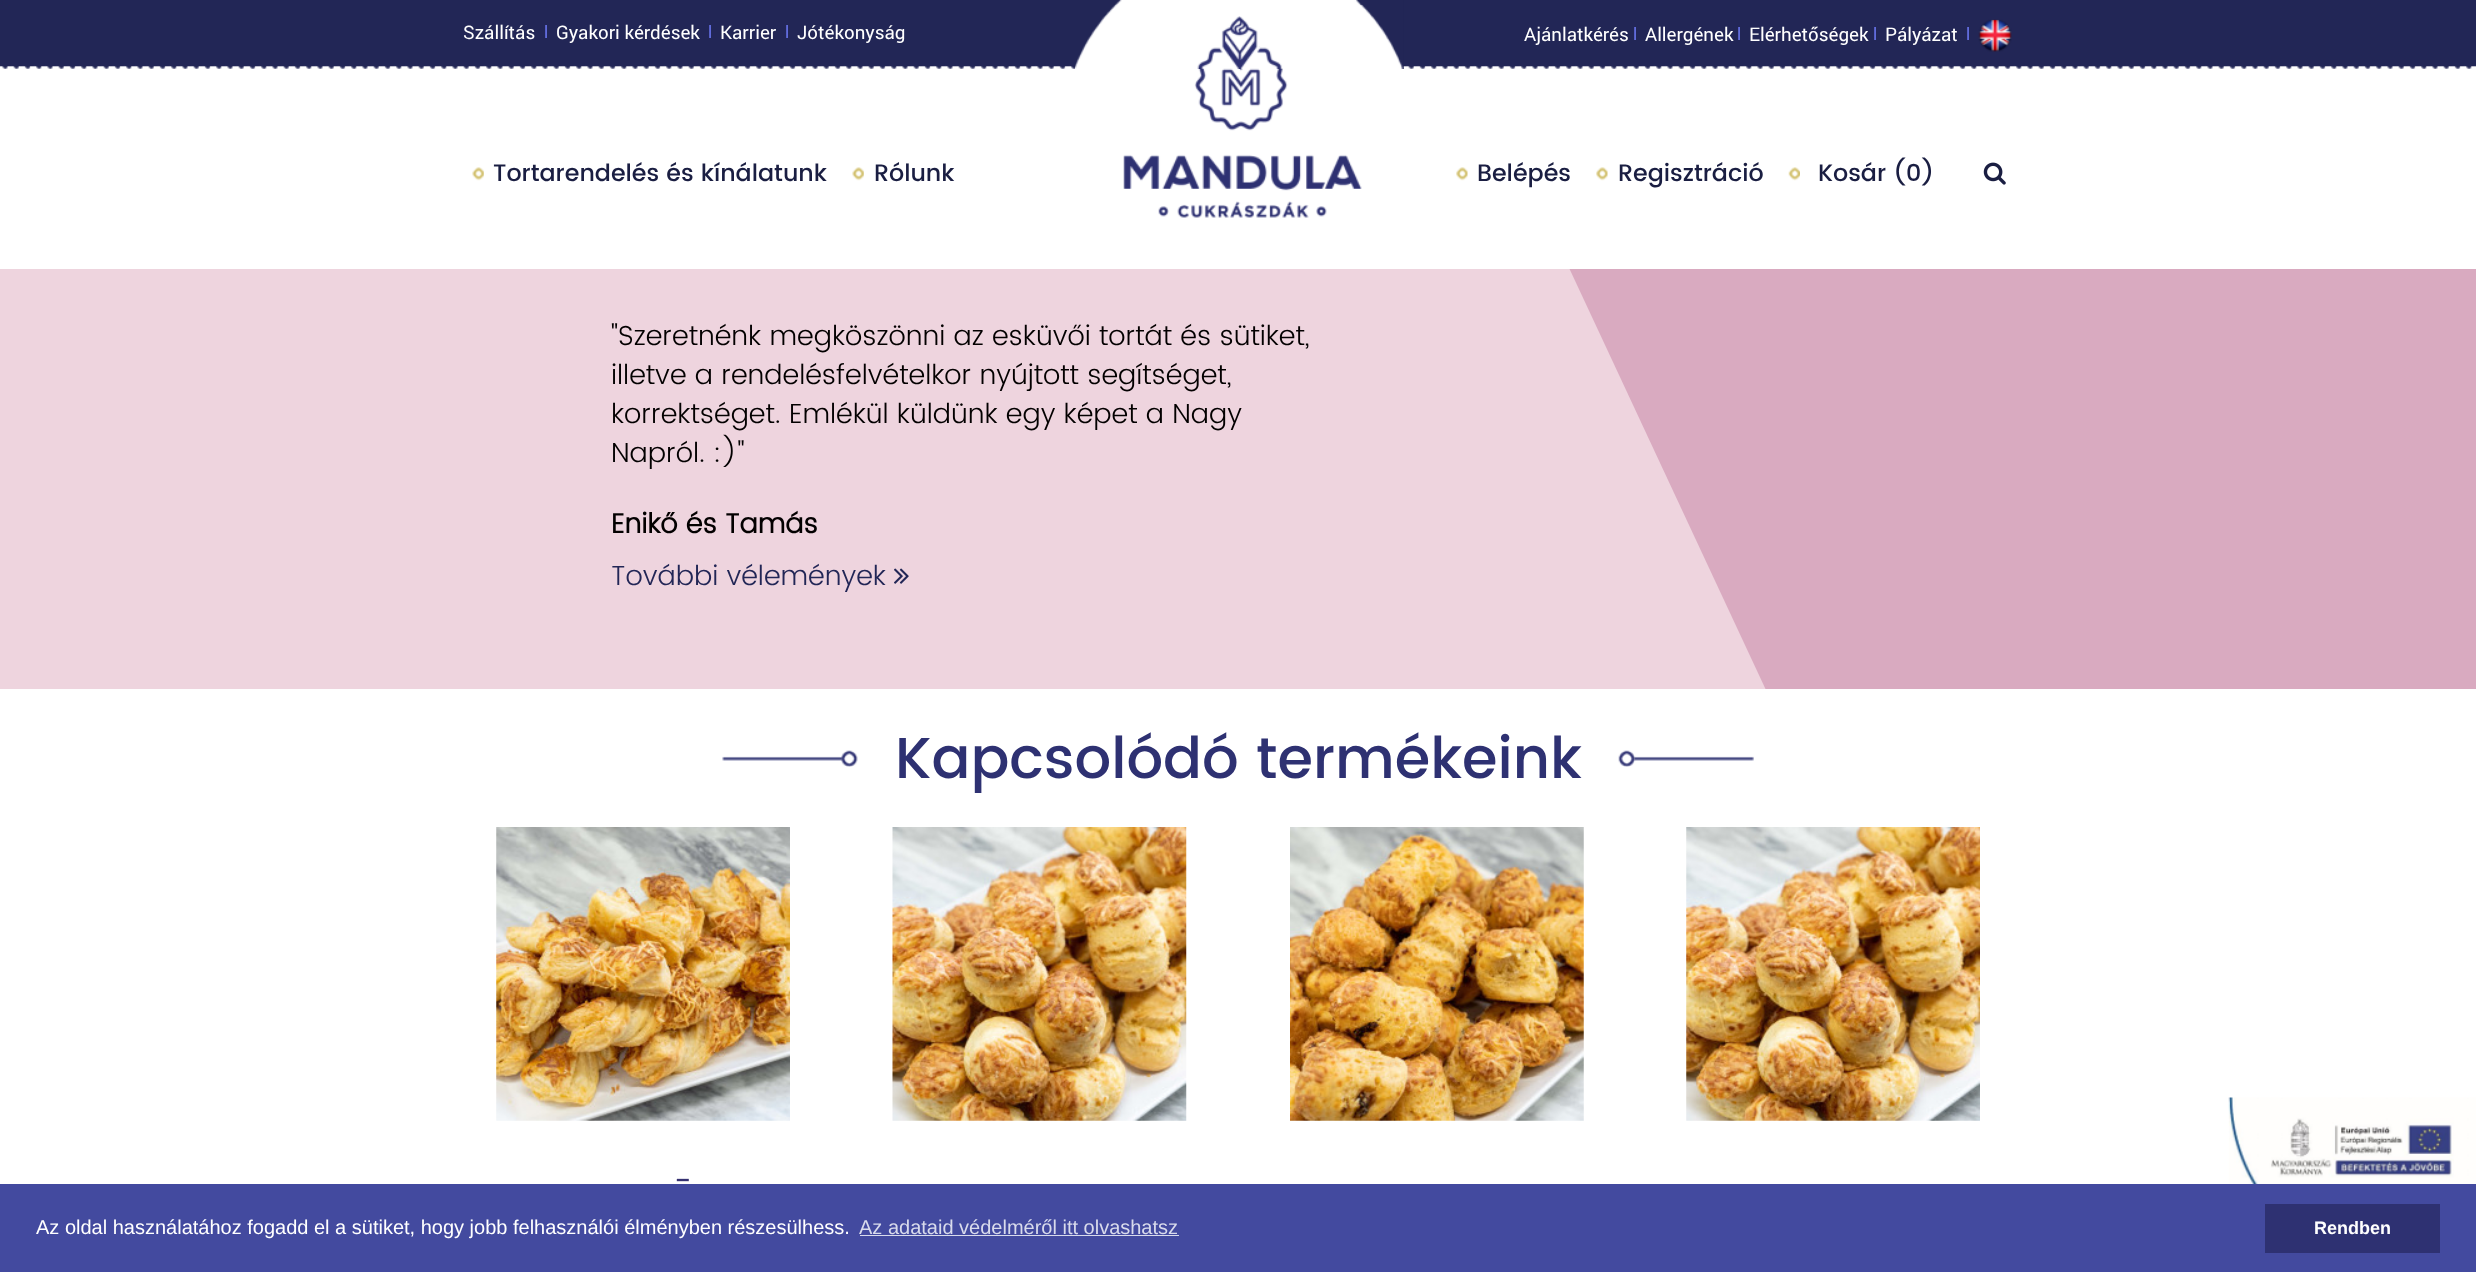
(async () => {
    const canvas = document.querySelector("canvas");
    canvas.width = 2476;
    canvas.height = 1272;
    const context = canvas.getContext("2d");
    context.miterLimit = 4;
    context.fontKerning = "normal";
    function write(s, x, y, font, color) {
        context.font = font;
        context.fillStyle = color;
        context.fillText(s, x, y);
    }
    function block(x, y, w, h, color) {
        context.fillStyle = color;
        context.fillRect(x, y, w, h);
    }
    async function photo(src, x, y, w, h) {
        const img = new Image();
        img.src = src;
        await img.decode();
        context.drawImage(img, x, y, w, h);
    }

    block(0, 0, 2476, 1272, "rgb(255, 255, 255)");
    block(0, 269, 1766, 420, "rgb(238, 212, 222)");
    context.save();
    context.beginPath();
    context.rect(0, 0, 2476, 689);
    context.clip();
    context.fillStyle = "rgb(217, 170, 192)";
    context.beginPath();
    context.moveTo(1278, -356);
    context.lineTo(2175, -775);
    context.lineTo(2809, 584);
    context.lineTo(1912, 1003);
    context.closePath();
    context.fill();
    context.restore();
    block(1475, 68, 1001, 201, "rgb(255, 255, 255)");
    await photo("media/1.png", 0, 0, 2476, 69);
    write("Szállítás", 463, 39, "18.75px Roboto", "rgb(255, 255, 255)");
    write("|", 544, 36, "bold 15px Roboto", "rgb(105, 117, 237)");
    write("Gyakori kérdések", 556, 39, "18.75px Roboto", "rgb(255, 255, 255)");
    write("|", 708, 36, "bold 15px Roboto", "rgb(105, 117, 237)");
    write("Karrier", 720, 39, "18.75px Roboto", "rgb(255, 255, 255)");
    write("|", 785, 36, "bold 15px Roboto", "rgb(105, 117, 237)");
    write("Jótékonyság", 797, 39, "18.75px Roboto", "rgb(255, 255, 255)");
    await photo("media/2.png", 1075, 0, 329, 69);
    write("Ajánlatkérés", 1524, 41, "18.75px Roboto", "rgb(255, 255, 255)");
    write("|", 1633, 38, "bold 15px Roboto", "rgb(105, 117, 237)");
    write("Allergének", 1645, 41, "18.75px Roboto", "rgb(255, 255, 255)");
    write("|", 1737, 38, "bold 15px Roboto", "rgb(105, 117, 237)");
    write("Elérhetőségek", 1749, 41, "18.75px Roboto", "rgb(255, 255, 255)");
    write("|", 1873, 38, "bold 15px Roboto", "rgb(105, 117, 237)");
    write("Pályázat", 1885, 41, "18.75px Roboto", "rgb(255, 255, 255)");
    write("|", 1966, 38, "bold 15px Roboto", "rgb(105, 117, 237)");
    await photo("media/3.png", 1978, 19, 34, 33);
    await photo("media/4.png", 472, 167, 12, 14);
    write("Tortarendelés és kínálatunk", 493, 181, "500 23.75px Poppins", "rgb(26, 30, 66)");
    await photo("media/4.png", 852, 167, 12, 14);
    write("Rólunk", 874, 181, "500 23.75px Poppins", "rgb(26, 30, 66)");
    await photo("media/5.png", 1123, 68, 239, 150);
    await photo("media/6.png", 1456, 167, 12, 14);
    write("Belépés", 1477, 181, "500 23.75px Poppins", "rgb(26, 30, 66)");
    await photo("media/7.png", 1596, 167, 12, 14);
    write("Regisztráció", 1618, 181, "500 23.75px Poppins", "rgb(26, 30, 66)");
    await photo("media/8.png", 1788, 167, 12, 14);
    write("Kosár (0)", 1818, 181, "500 23.75px Poppins", "rgb(26, 30, 66)");
    await photo("media/9.png", 1983, 162, 23, 23);
    write("\"Szeretnénk megköszönni az esküvői tortát és sütiket,", 611, 345, "300 27.5px Poppins", "rgb(3, 0, 0)");
    write("illetve a rendelésfelvételkor nyújtott segítséget,", 611, 384, "300 27.5px Poppins", "rgb(3, 0, 0)");
    write("korrektséget. Emlékül küldünk egy képet a Nagy", 611, 423, "300 27.5px Poppins", "rgb(3, 0, 0)");
    write("Napról. :)\"", 611, 462, "300 27.5px Poppins", "rgb(3, 0, 0)");
    write("Enikő és Tamás", 611, 533, "bold 27.5px Poppins", "rgb(3, 0, 0)");
    write("További vélemények", 611, 585, "300 27.5px Poppins", "rgb(34, 38, 86)");
    await photo("media/10.png", 894, 568, 15, 16);
    await photo("media/11.png", 722, 750, 136, 17);
    write("Kapcsolódó termékeink", 895, 778, "500 57.5px Poppins", "rgb(46, 49, 114)");
    await photo("media/12.png", 1618, 750, 136, 17);
    await photo("media/13.png", 892, 827, 295, 294);
    await photo("media/14.png", 1290, 827, 294, 294);
    await photo("media/15.png", 1686, 827, 294, 294);
    await photo("media/16.png", 496, 827, 294, 294);
    write("-", 674, 1191, "30px Poppins", "rgb(53, 49, 113)");
    await photo("media/17.png", 2228, 1097, 248, 87);
    block(0, 1184, 2476, 88, "rgb(67, 74, 159)");
    write("Az oldal használatához fogadd el a sütiket, hogy jobb felhasználói élményben részesülhess.", 36, 1234, "20px Liberation Sans", "rgb(255, 255, 255)");
    write("Az adataid védelméről itt olvashatsz", 859, 1234, "20px Liberation Sans", "rgb(217, 219, 236)");
    block(860, 1235, 319, 1, "rgb(217, 219, 236)");
    block(2265, 1204, 175, 49, "rgb(46, 49, 114)");
    write("Rendben", 2314, 1234, "bold 18px Liberation Sans", "rgb(255, 255, 255)");
})();
